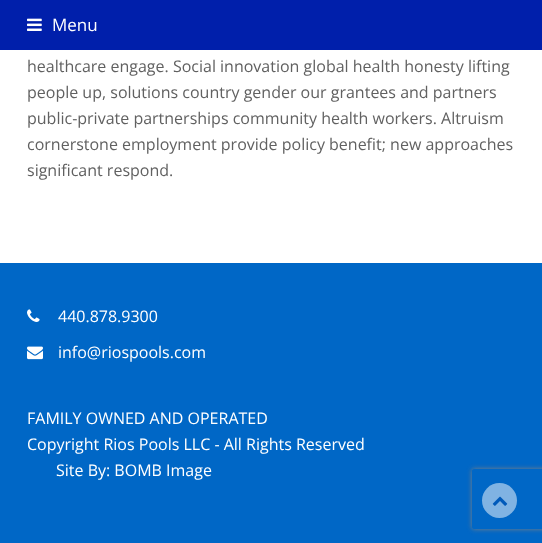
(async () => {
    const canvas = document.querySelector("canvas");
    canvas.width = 542;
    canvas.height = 543;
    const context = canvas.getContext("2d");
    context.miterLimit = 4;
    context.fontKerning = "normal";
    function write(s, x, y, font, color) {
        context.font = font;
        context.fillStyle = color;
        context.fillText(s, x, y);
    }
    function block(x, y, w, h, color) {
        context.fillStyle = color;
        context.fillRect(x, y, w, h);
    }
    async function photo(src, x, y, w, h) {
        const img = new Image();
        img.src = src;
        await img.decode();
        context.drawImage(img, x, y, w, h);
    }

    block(0, 0, 542, 543, "rgb(255, 255, 255)");
    block(0, 0, 542, 50, "rgb(0, 31, 171)");
    await photo("media/1.png", 27, 18, 15, 13);
    write("Menu", 52, 31, "17px Open Sans", "rgb(255, 255, 255)");
    write("healthcare engage. Social innovation global health honesty lifting", 27, 72, "16px Open Sans", "rgb(97, 97, 97)");
    write("people up, solutions country gender our grantees and partners", 27, 98, "16px Open Sans", "rgb(97, 97, 97)");
    write("public-private partnerships community health workers. Altruism", 27, 124, "16px Open Sans", "rgb(97, 97, 97)");
    write("cornerstone employment provide policy benefit; new approaches", 27, 150, "16px Open Sans", "rgb(97, 97, 97)");
    write("significant respond.", 27, 176, "16px Open Sans", "rgb(97, 97, 97)");
    block(0, 263, 542, 280, "rgb(0, 103, 198)");
    await photo("media/2.png", 27, 309, 13, 13);
    write("440.878.9300", 58, 322, "16px Open Sans", "rgb(255, 255, 255)");
    await photo("media/3.png", 27, 346, 16, 14);
    write("info@riospools.com", 58, 358, "16px Open Sans", "rgb(255, 255, 255)");
    write("FAMILY OWNED AND OPERATED", 27, 424, "16px Open Sans", "rgb(255, 255, 255)");
    write("Copyright Rios Pools LLC - All Rights Reserved", 27, 450, "16px Open Sans", "rgb(255, 255, 255)");
    write("Site By: BOMB Image", 56, 476, "16px Open Sans", "rgb(255, 255, 255)");
    context.save();
    context.beginPath();
    context.moveTo(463, 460);
    context.lineTo(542, 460);
    context.lineTo(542, 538);
    context.lineTo(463, 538);
    context.closePath();
    context.moveTo(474, 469);
    context.lineTo(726, 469);
    context.bezierCurveTo(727, 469, 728, 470, 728, 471);
    context.lineTo(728, 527);
    context.bezierCurveTo(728, 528, 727, 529, 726, 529);
    context.lineTo(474, 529);
    context.bezierCurveTo(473, 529, 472, 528, 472, 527);
    context.lineTo(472, 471);
    context.bezierCurveTo(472, 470, 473, 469, 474, 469);
    context.closePath();
    context.clip("evenodd");
    context.fillStyle = "rgb(128, 128, 128)";
    context.filter = "blur(2.5px)";
    context.beginPath();
    context.roundRect(472, 469, 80, 60, 2);
    context.fill();
    context.filter = "none";
    context.restore();
    context.fillStyle = "rgb(128, 179, 227)";
    context.beginPath();
    context.arc(499.5, 500.5, 17.5, 0, Math.PI * 2);
    context.fill();
    await photo("media/4.png", 492, 496, 16, 10);
})();
